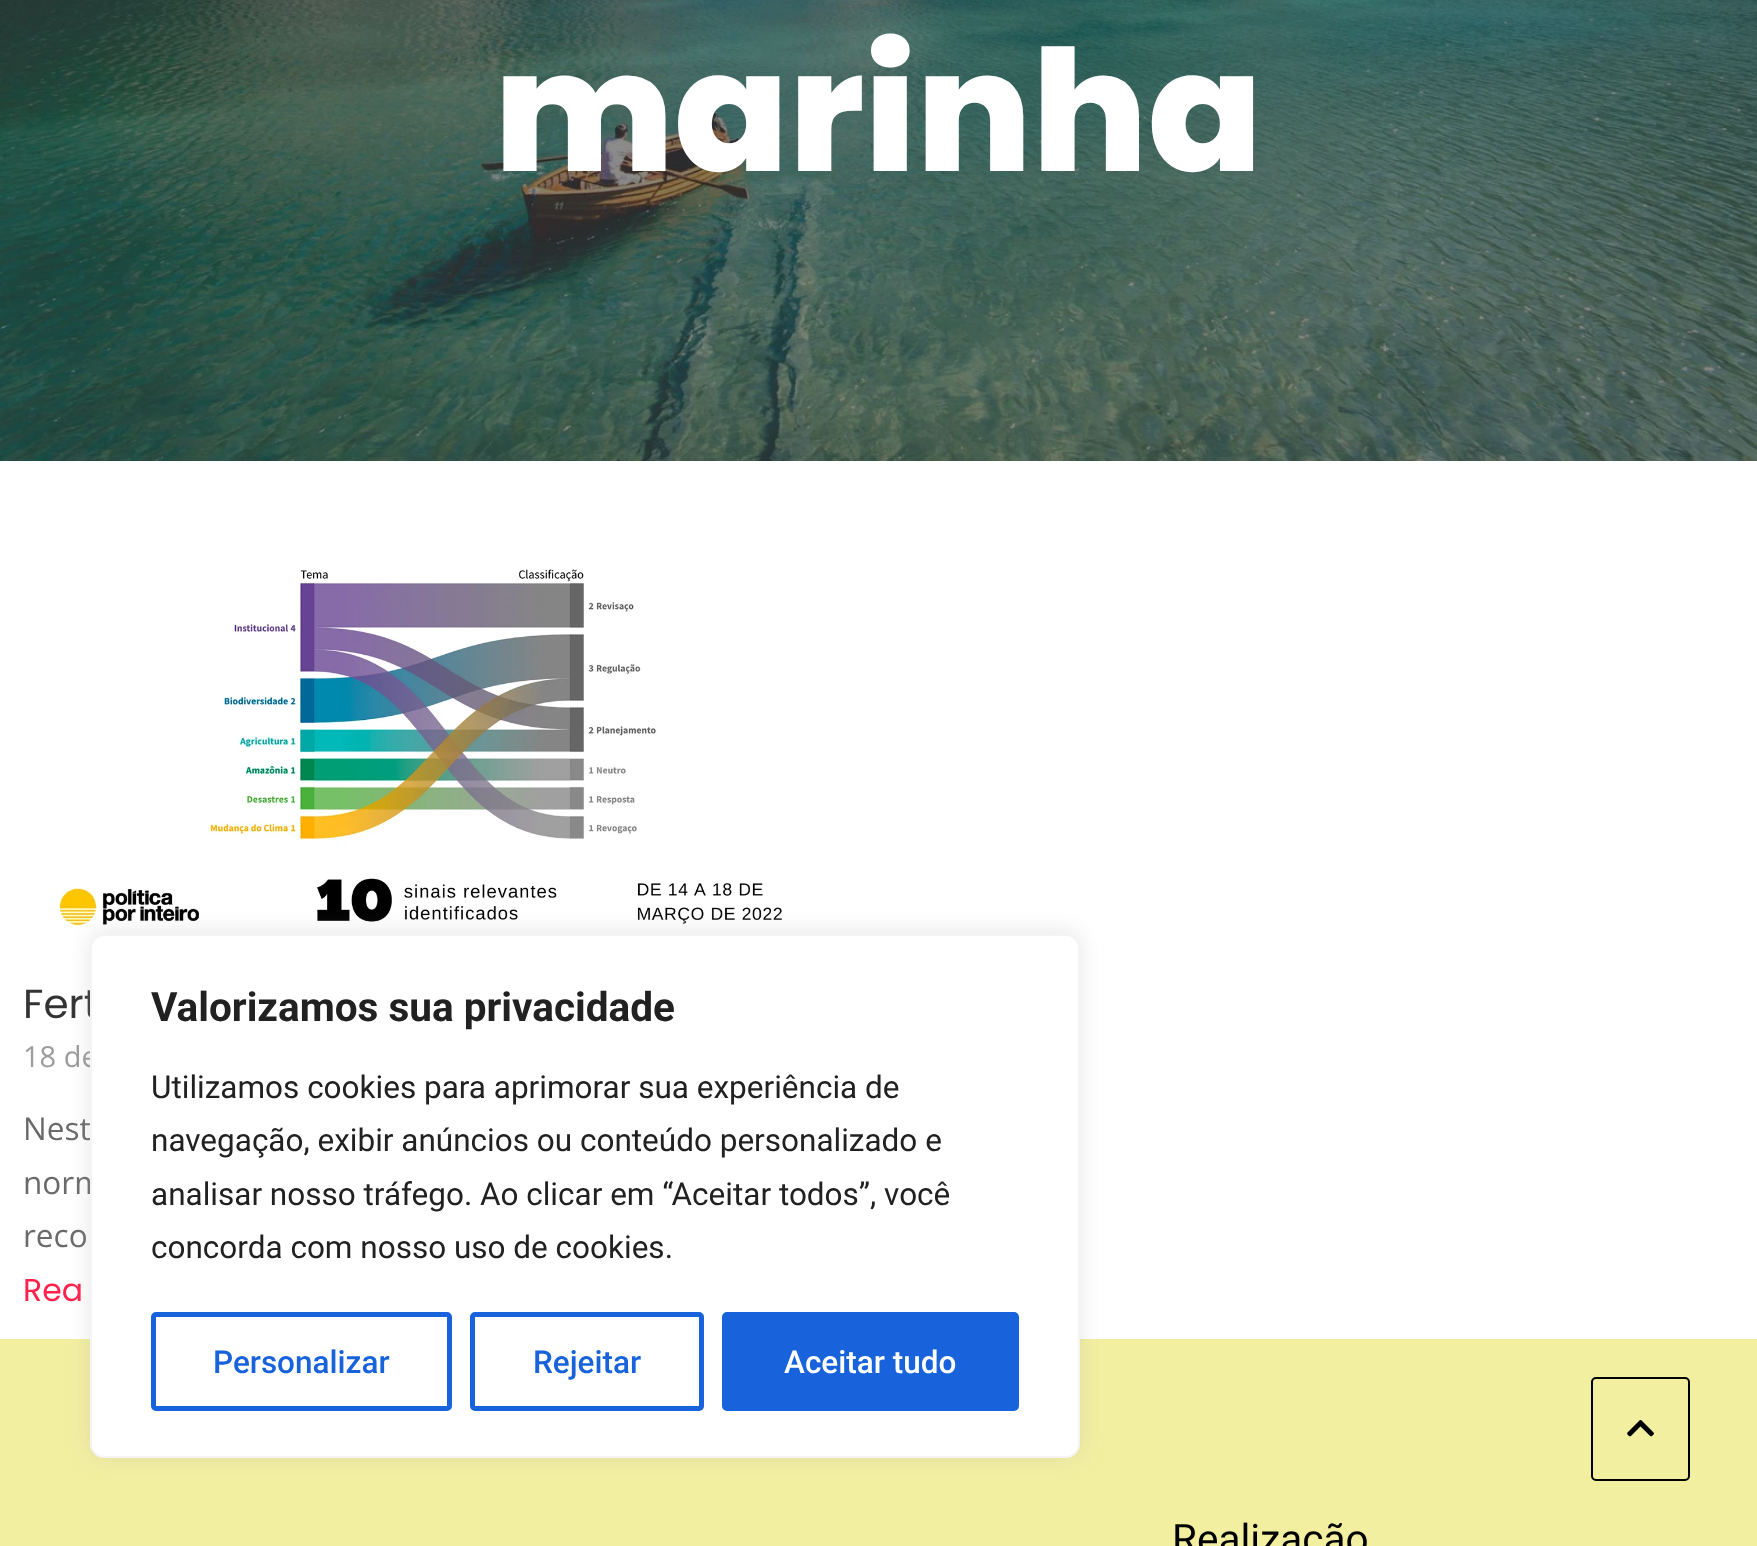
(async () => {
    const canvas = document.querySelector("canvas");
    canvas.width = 1757;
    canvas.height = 1546;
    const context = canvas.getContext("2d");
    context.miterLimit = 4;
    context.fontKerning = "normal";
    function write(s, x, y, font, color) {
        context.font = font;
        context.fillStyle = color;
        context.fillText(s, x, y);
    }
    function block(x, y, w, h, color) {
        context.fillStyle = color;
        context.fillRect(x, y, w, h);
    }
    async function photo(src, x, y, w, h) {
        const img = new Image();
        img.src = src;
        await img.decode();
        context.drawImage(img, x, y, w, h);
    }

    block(0, 0, 1757, 1546, "rgb(255, 255, 255)");
    await photo("media/1.png", 0, 0, 1757, 461);
    write("marinha", 494, 171, "800 168.75px Poppins", "rgb(255, 255, 255)");
    await photo("media/2.png", 59, 569, 723, 357);
    write("Fert", 23, 1018, "40.5px Poppins", "rgb(51, 51, 51)");
    write("18 de", 23, 1067, "29px Open Sans", "rgb(156, 156, 156)");
    write("Nest", 23, 1140, "31.5px Open Sans", "rgb(106, 106, 106)");
    write("norm", 23, 1194, "31.5px Open Sans", "rgb(106, 106, 106)");
    write("reco", 23, 1247, "31.5px Open Sans", "rgb(106, 106, 106)");
    write("Rea", 23, 1301, "31.5px Poppins", "rgb(255, 34, 77)");
    block(0, 1339, 1757, 207, "rgb(243, 239, 161)");
    context.fillStyle = "rgba(172, 171, 171, 0.3)";
    context.filter = "blur(11px)";
    context.beginPath();
    context.roundRect(90, 932, 990, 524, 14);
    context.fill();
    context.filter = "none";
    context.fillStyle = "rgb(255, 255, 255)";
    context.beginPath();
    context.roundRect(91, 935, 988, 522, 13);
    context.fill();
    context.strokeStyle = "rgb(244, 244, 244)";
    context.lineWidth = 2;
    context.stroke();
    write("Valorizamos sua privacidade", 151, 1021, "bold 40.5px Roboto", "rgb(33, 33, 33)");
    write("Utilizamos cookies para aprimorar sua experiência de", 151, 1098, "31.5px Roboto", "rgb(33, 33, 33)");
    write("navegação, exibir anúncios ou conteúdo personalizado e", 151, 1151, "31.5px Roboto", "rgb(33, 33, 33)");
    write("analisar nosso tráfego. Ao clicar em “Aceitar todos”, você", 151, 1205, "31.5px Roboto", "rgb(33, 33, 33)");
    write("concorda com nosso uso de cookies.", 151, 1258, "31.5px Roboto", "rgb(33, 33, 33)");
    context.beginPath();
    context.roundRect(153.5, 1314.5, 296, 94, 2.5);
    context.strokeStyle = "rgb(24, 99, 220)";
    context.lineWidth = 5;
    context.stroke();
    write("Personalizar", 213, 1373, "500 31.5px Roboto", "rgb(24, 99, 220)");
    context.beginPath();
    context.roundRect(472.5, 1314.5, 229, 94, 2.5);
    context.stroke();
    write("Rejeitar", 533, 1373, "500 31.5px Roboto", "rgb(24, 99, 220)");
    context.beginPath();
    context.roundRect(724.5, 1314.5, 292, 94, 2.5);
    context.fill();
    context.stroke();
    write("Aceitar tudo", 784, 1373, "500 31.5px Roboto", "rgb(255, 255, 255)");
    context.beginPath();
    context.roundRect(1592, 1378, 97, 102, 4);
    context.strokeStyle = "rgb(0, 0, 0)";
    context.lineWidth = 2;
    context.stroke();
    await photo("media/3.png", 1627, 1420, 27, 17);
    write("Realização", 1172, 1553, "40.5px Roboto", "rgb(0, 0, 0)");
})();
